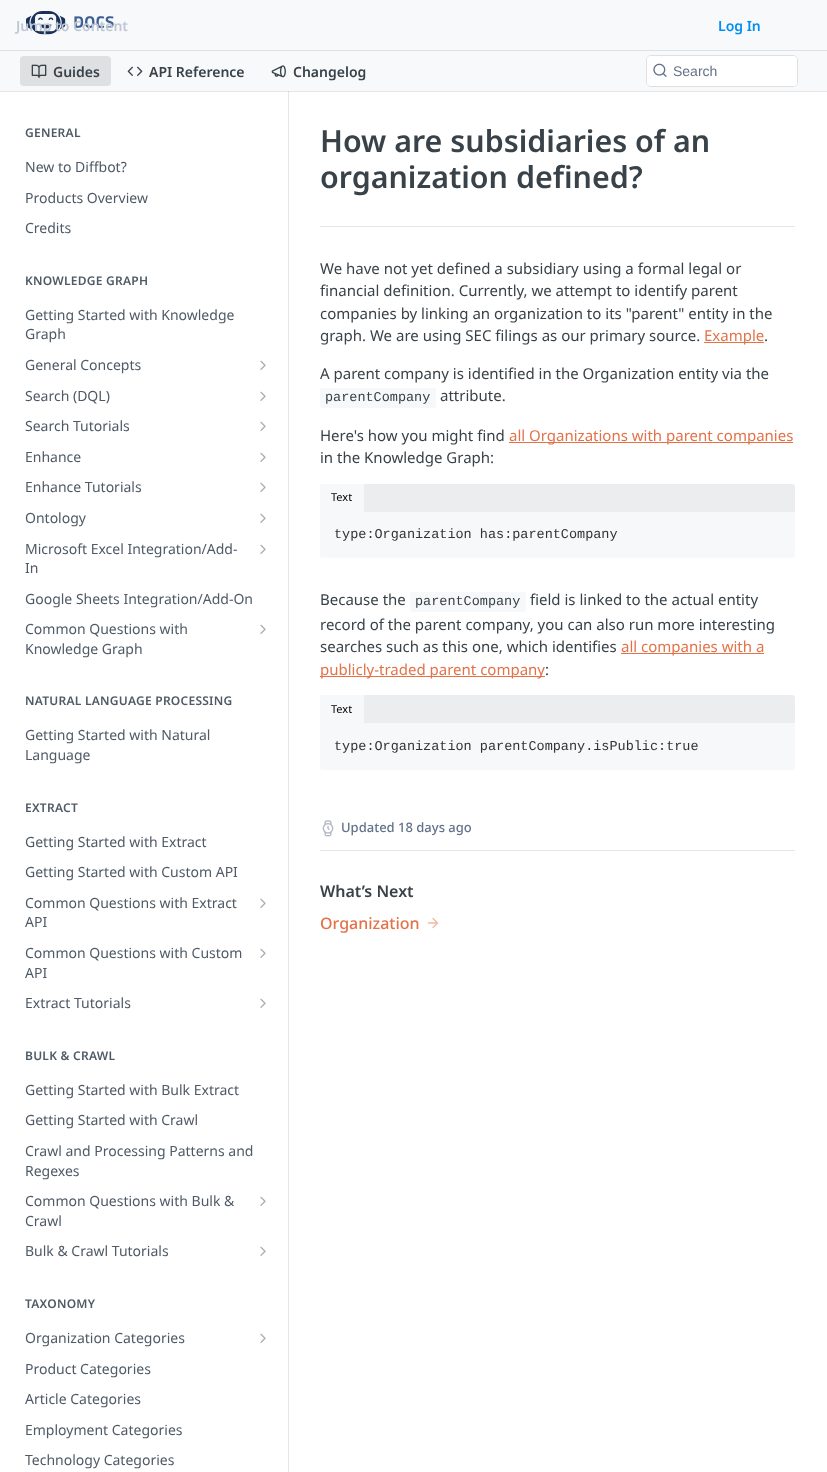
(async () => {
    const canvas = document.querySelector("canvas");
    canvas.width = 827;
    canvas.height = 1472;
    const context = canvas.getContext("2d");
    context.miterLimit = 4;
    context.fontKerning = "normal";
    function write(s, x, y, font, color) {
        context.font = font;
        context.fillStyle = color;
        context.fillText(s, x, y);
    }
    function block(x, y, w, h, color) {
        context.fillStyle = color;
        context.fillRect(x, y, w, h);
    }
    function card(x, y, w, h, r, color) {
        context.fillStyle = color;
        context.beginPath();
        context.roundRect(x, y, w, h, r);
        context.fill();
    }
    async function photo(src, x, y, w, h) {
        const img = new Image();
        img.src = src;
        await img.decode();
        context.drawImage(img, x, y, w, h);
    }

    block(0, 0, 827, 1472, "rgb(255, 255, 255)");
    block(0, 91, 827, 1, "rgb(230, 230, 230)");
    block(0, 0, 827, 91, "rgb(247, 249, 251)");
    block(0, 50, 827, 1, "rgb(222, 224, 226)");
    await photo("media/1.png", 26, 11, 88, 24);
    write("Jump to Content", 16, 31, "600 14px Noto Sans", "rgb(191, 199, 213)");
    write("Log In", 718, 31, "600 14px Noto Sans", "rgb(1, 142, 245)");
    card(20, 56, 91, 30, 4, "rgb(222, 224, 226)");
    await photo("media/2.png", 31, 64, 16, 14);
    write("Guides", 53, 77, "600 14px Noto Sans", "rgb(56, 66, 72)");
    await photo("media/3.png", 127, 66, 16, 10);
    write("API Reference", 149, 77, "600 14px Noto Sans", "rgb(56, 66, 72)");
    await photo("media/4.png", 271, 65, 15, 13);
    write("Changelog", 293, 77, "600 14px Noto Sans", "rgb(56, 66, 72)");
    context.beginPath();
    context.roundRect(646.5, 55.5, 151, 31, 4.5);
    context.strokeStyle = "rgb(222, 224, 226)";
    context.stroke();
    card(647, 56, 150, 30, 4, "rgb(255, 255, 255)");
    await photo("media/5.png", 653, 63, 14, 14);
    write("Search", 673, 76, "14px Liberation Sans", "rgb(99, 114, 136)");
    block(288, 91, 1, 1381, "rgb(230, 230, 230)");
    block(288, 91, 1, 1, "rgb(207, 207, 207)");
    context.letterSpacing = "0.25px";
    write("GENERAL", 25, 137, "600 12px Noto Sans", "rgb(79, 90, 102)");
    context.letterSpacing = "0px";
    write("New to Diffbot?", 25, 172, "14px Noto Sans", "rgb(79, 90, 102)");
    write("Products Overview", 25, 203, "14px Noto Sans", "rgb(79, 90, 102)");
    write("Credits", 25, 233, "14px Noto Sans", "rgb(79, 90, 102)");
    context.letterSpacing = "0.25px";
    write("KNOWLEDGE GRAPH", 25, 285, "600 12px Noto Sans", "rgb(79, 90, 102)");
    context.letterSpacing = "0px";
    write("Getting Started with Knowledge", 25, 320, "14px Noto Sans", "rgb(79, 90, 102)");
    write("Graph", 25, 339, "14px Noto Sans", "rgb(79, 90, 102)");
    write("General Concepts", 25, 370, "14px Noto Sans", "rgb(79, 90, 102)");
    await photo("media/6.png", 260, 360, 6, 10);
    write("Search (DQL)", 25, 401, "14px Noto Sans", "rgb(79, 90, 102)");
    await photo("media/6.png", 260, 391, 6, 10);
    write("Search Tutorials", 25, 431, "14px Noto Sans", "rgb(79, 90, 102)");
    await photo("media/6.png", 260, 421, 6, 10);
    write("Enhance", 25, 462, "14px Noto Sans", "rgb(79, 90, 102)");
    await photo("media/6.png", 260, 452, 6, 10);
    write("Enhance Tutorials", 25, 492, "14px Noto Sans", "rgb(79, 90, 102)");
    await photo("media/6.png", 260, 482, 6, 10);
    write("Ontology", 25, 523, "14px Noto Sans", "rgb(79, 90, 102)");
    await photo("media/6.png", 260, 513, 6, 10);
    write("Microsoft Excel Integration/Add-", 25, 554, "14px Noto Sans", "rgb(79, 90, 102)");
    write("In", 25, 573, "14px Noto Sans", "rgb(79, 90, 102)");
    await photo("media/6.png", 260, 544, 6, 10);
    write("Google Sheets Integration/Add-On", 25, 604, "14px Noto Sans", "rgb(79, 90, 102)");
    write("Common Questions with", 25, 634, "14px Noto Sans", "rgb(79, 90, 102)");
    write("Knowledge Graph", 25, 654, "14px Noto Sans", "rgb(79, 90, 102)");
    await photo("media/6.png", 260, 624, 6, 10);
    context.letterSpacing = "0.25px";
    write("NATURAL LANGUAGE PROCESSING", 25, 705, "600 12px Noto Sans", "rgb(79, 90, 102)");
    context.letterSpacing = "0px";
    write("Getting Started with Natural", 25, 740, "14px Noto Sans", "rgb(79, 90, 102)");
    write("Language", 25, 760, "14px Noto Sans", "rgb(79, 90, 102)");
    context.letterSpacing = "0.25px";
    write("EXTRACT", 25, 812, "600 12px Noto Sans", "rgb(79, 90, 102)");
    context.letterSpacing = "0px";
    write("Getting Started with Extract", 25, 847, "14px Noto Sans", "rgb(79, 90, 102)");
    write("Getting Started with Custom API", 25, 877, "14px Noto Sans", "rgb(79, 90, 102)");
    write("Common Questions with Extract", 25, 908, "14px Noto Sans", "rgb(79, 90, 102)");
    write("API", 25, 927, "14px Noto Sans", "rgb(79, 90, 102)");
    await photo("media/6.png", 260, 898, 6, 10);
    write("Common Questions with Custom", 25, 958, "14px Noto Sans", "rgb(79, 90, 102)");
    write("API", 25, 978, "14px Noto Sans", "rgb(79, 90, 102)");
    await photo("media/6.png", 260, 948, 6, 10);
    write("Extract Tutorials", 25, 1008, "14px Noto Sans", "rgb(79, 90, 102)");
    await photo("media/6.png", 260, 998, 6, 10);
    context.letterSpacing = "0.25px";
    write("BULK & CRAWL", 25, 1060, "600 12px Noto Sans", "rgb(79, 90, 102)");
    context.letterSpacing = "0px";
    write("Getting Started with Bulk Extract", 25, 1095, "14px Noto Sans", "rgb(79, 90, 102)");
    write("Getting Started with Crawl", 25, 1125, "14px Noto Sans", "rgb(79, 90, 102)");
    write("Crawl and Processing Patterns and", 25, 1156, "14px Noto Sans", "rgb(79, 90, 102)");
    write("Regexes", 25, 1176, "14px Noto Sans", "rgb(79, 90, 102)");
    write("Common Questions with Bulk &", 25, 1206, "14px Noto Sans", "rgb(79, 90, 102)");
    write("Crawl", 25, 1226, "14px Noto Sans", "rgb(79, 90, 102)");
    await photo("media/6.png", 260, 1196, 6, 10);
    write("Bulk & Crawl Tutorials", 25, 1256, "14px Noto Sans", "rgb(79, 90, 102)");
    await photo("media/6.png", 260, 1246, 6, 10);
    context.letterSpacing = "0.25px";
    write("TAXONOMY", 25, 1308, "600 12px Noto Sans", "rgb(79, 90, 102)");
    context.letterSpacing = "0px";
    write("Organization Categories", 25, 1343, "14px Noto Sans", "rgb(79, 90, 102)");
    await photo("media/6.png", 260, 1333, 6, 10);
    write("Product Categories", 25, 1374, "14px Noto Sans", "rgb(79, 90, 102)");
    write("Article Categories", 25, 1404, "14px Noto Sans", "rgb(79, 90, 102)");
    write("Employment Categories", 25, 1435, "14px Noto Sans", "rgb(79, 90, 102)");
    write("Technology Categories", 25, 1465, "14px Noto Sans", "rgb(79, 90, 102)");
    block(320, 226, 475, 1, "rgb(230, 230, 230)");
    write("How are subsidiaries of an", 320, 152, "600 30.4px Noto Sans", "rgb(56, 66, 72)");
    write("organization defined?", 320, 188, "600 30.4px Noto Sans", "rgb(56, 66, 72)");
    write("We have not yet defined a subsidiary using a formal legal or", 320, 274, "15px Noto Sans", "rgb(56, 66, 72)");
    write("financial definition. Currently, we attempt to identify parent", 320, 296, "15px Noto Sans", "rgb(56, 66, 72)");
    write("companies by linking an organization to its \"parent\" entity in the", 320, 319, "15px Noto Sans", "rgb(56, 66, 72)");
    write("graph. We are using SEC filings as our primary source.", 320, 341, "15px Noto Sans", "rgb(56, 66, 72)");
    block(704, 342, 60, 1, "rgb(227, 114, 73)");
    write("Example", 704, 341, "15px Noto Sans", "rgb(227, 114, 73)");
    write(".", 764, 341, "15px Noto Sans", "rgb(56, 66, 72)");
    write("A parent company is identified in the Organization entity via the", 320, 379, "15px Noto Sans", "rgb(56, 66, 72)");
    card(320, 388, 116, 20, 3, "rgb(246, 248, 250)");
    write("parentCompany", 325, 401, "13.5px Liberation Mono", "rgb(56, 66, 72)");
    write("attribute.", 440, 401, "15px Noto Sans", "rgb(56, 66, 72)");
    write("Here's how you might find", 320, 441, "15px Noto Sans", "rgb(56, 66, 72)");
    block(509, 442, 284, 1, "rgb(227, 114, 73)");
    write("all Organizations with parent companies", 509, 441, "15px Noto Sans", "rgb(227, 114, 73)");
    write("in the Knowledge Graph:", 320, 463, "15px Noto Sans", "rgb(56, 66, 72)");
    context.fillStyle = "rgb(235, 237, 239)";
    context.beginPath();
    context.roundRect(320, 484, 475, 28, [3, 3, 0, 0]);
    context.fill();
    context.fillStyle = "rgb(246, 248, 250)";
    context.beginPath();
    context.roundRect(320, 484, 44, 28, [3, 0, 0, 0]);
    context.fill();
    write("Text", 331, 501, "11px Noto Sans", "rgb(0, 0, 0)");
    context.fillStyle = "rgb(246, 248, 250)";
    context.beginPath();
    context.roundRect(320, 512, 475, 46, [0, 0, 3, 3]);
    context.fill();
    write("type:Organization has:parentCompany", 334, 538, "13.5px Liberation Mono", "rgb(51, 51, 51)");
    write("Because the", 320, 605, "15px Noto Sans", "rgb(56, 66, 72)");
    card(410, 592, 116, 20, 3, "rgb(246, 248, 250)");
    write("parentCompany", 415, 605, "13.5px Liberation Mono", "rgb(56, 66, 72)");
    write("field is linked to the actual entity", 530, 605, "15px Noto Sans", "rgb(56, 66, 72)");
    write("record of the parent company, you can also run more interesting", 320, 630, "15px Noto Sans", "rgb(56, 66, 72)");
    write("searches such as this one, which identifies", 320, 652, "15px Noto Sans", "rgb(56, 66, 72)");
    block(621, 653, 143, 1, "rgb(227, 114, 73)");
    write("all companies with a", 621, 652, "15px Noto Sans", "rgb(227, 114, 73)");
    block(320, 676, 225, 1, "rgb(227, 114, 73)");
    write("publicly-traded parent company", 320, 675, "15px Noto Sans", "rgb(227, 114, 73)");
    write(":", 545, 675, "15px Noto Sans", "rgb(56, 66, 72)");
    context.fillStyle = "rgb(235, 237, 239)";
    context.beginPath();
    context.roundRect(320, 695, 475, 28, [3, 3, 0, 0]);
    context.fill();
    context.fillStyle = "rgb(246, 248, 250)";
    context.beginPath();
    context.roundRect(320, 695, 44, 28, [3, 0, 0, 0]);
    context.fill();
    write("Text", 331, 713, "11px Noto Sans", "rgb(0, 0, 0)");
    context.fillStyle = "rgb(246, 248, 250)";
    context.beginPath();
    context.roundRect(320, 723, 475, 47, [0, 0, 3, 3]);
    context.fill();
    write("type:Organization parentCompany.isPublic:true", 334, 750, "13.5px Liberation Mono", "rgb(51, 51, 51)");
    await photo("media/7.png", 322, 820, 12, 17);
    write("Updated 18 days ago", 341, 832, "500 13px Noto Sans", "rgb(99, 114, 136)");
    block(320, 850, 475, 1, "rgb(230, 230, 230)");
    write("What’s Next", 320, 897, "600 16px Noto Sans", "rgb(56, 66, 72)");
    write("Organization", 320, 929, "500 16px Noto Sans", "rgb(227, 114, 73)");
    context.beginPath();
    context.moveTo(428.5, 923);
    context.lineTo(437.5, 923);
    context.moveTo(433, 918.5);
    context.lineTo(437.5, 923);
    context.lineTo(433, 927.5);
    context.strokeStyle = "rgb(241, 185, 164)";
    context.lineWidth = 1.3;
    context.lineCap = "round";
    context.lineJoin = "round";
    context.stroke();
})();
